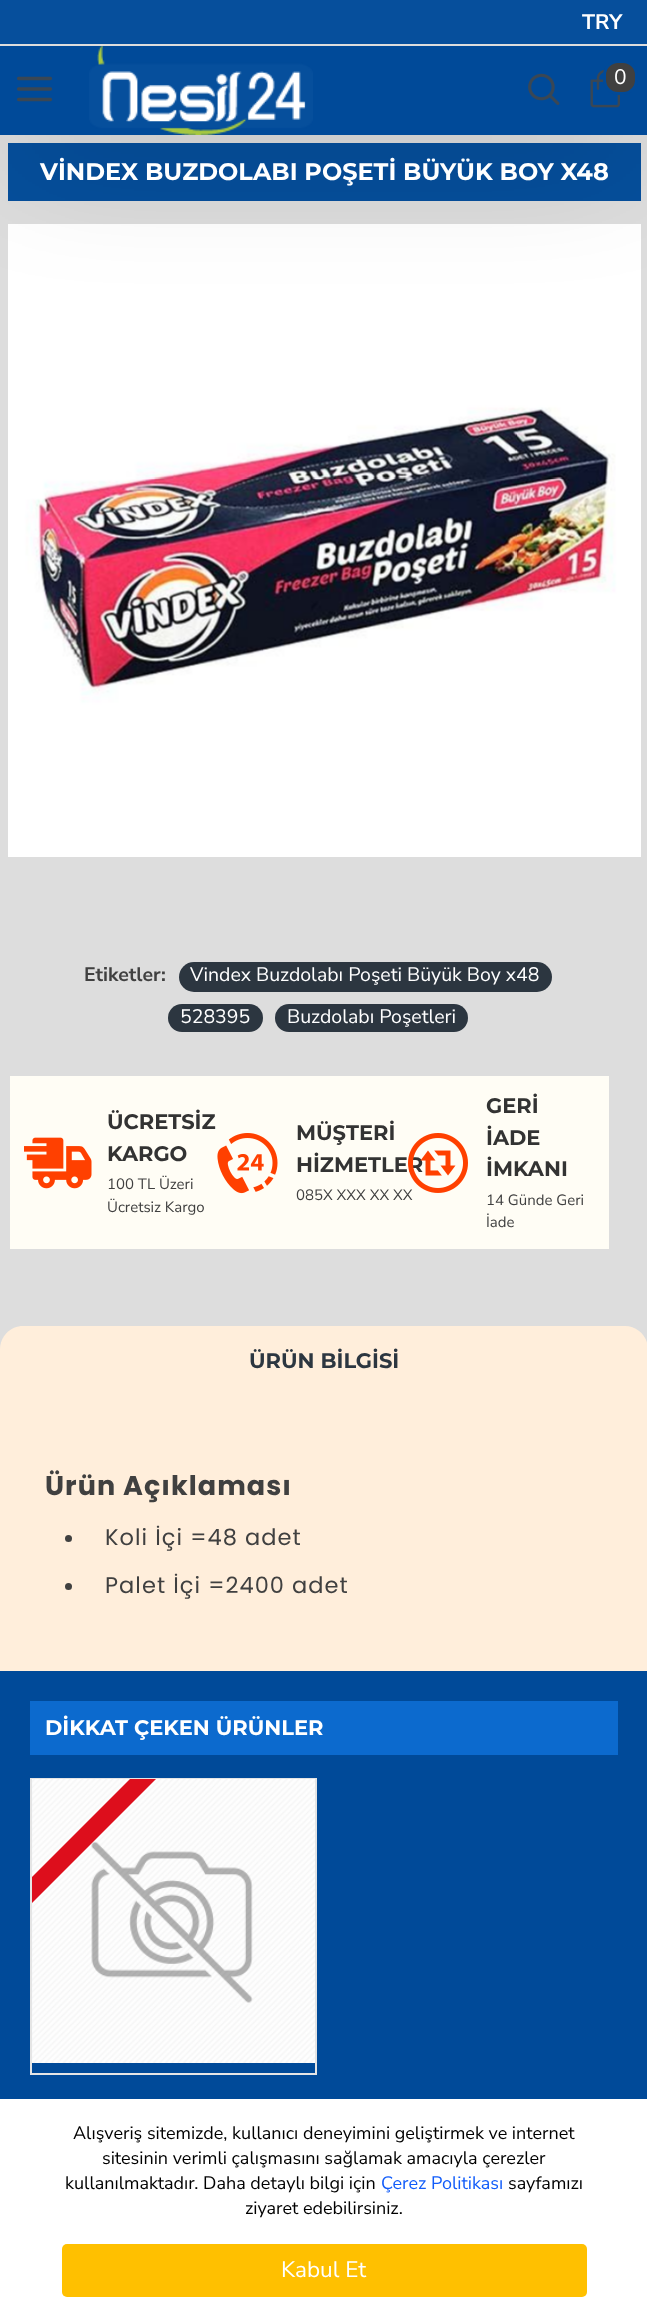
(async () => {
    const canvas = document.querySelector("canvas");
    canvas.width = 647;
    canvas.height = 2319;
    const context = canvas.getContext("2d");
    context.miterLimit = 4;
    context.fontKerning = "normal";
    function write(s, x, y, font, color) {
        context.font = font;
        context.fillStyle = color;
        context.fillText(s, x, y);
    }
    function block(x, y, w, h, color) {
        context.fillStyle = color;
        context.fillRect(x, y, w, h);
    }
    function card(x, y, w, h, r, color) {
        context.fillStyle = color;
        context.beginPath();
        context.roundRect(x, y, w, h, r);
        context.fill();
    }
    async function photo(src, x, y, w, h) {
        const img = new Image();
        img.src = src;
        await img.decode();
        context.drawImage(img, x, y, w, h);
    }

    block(0, 0, 647, 2319, "rgb(221, 221, 221)");
    block(8, 143, 633, 58, "rgb(6, 79, 156)");
    await photo("media/5.png", 8, 224, 633, 633);
    context.fillStyle = "rgba(0, 0, 0, 0.2)";
    context.filter = "blur(67.5px)";
    context.beginPath();
    context.rect(15, 83, 618, 60);
    context.fill();
    context.filter = "none";
    block(0, 0, 647, 44, "rgb(6, 79, 156)");
    block(0, 44, 647, 2, "rgb(221, 221, 221)");
    write("TRY", 582, 29, "bold 21px Nunito Sans", "rgb(255, 255, 255)");
    block(0, 46, 647, 89, "rgb(0, 74, 153)");
    await photo("media/1.png", 89, 46, 224, 89);
    await photo("media/2.png", 17, 76, 35, 26);
    await photo("media/3.png", 528, 73, 32, 32);
    await photo("media/4.png", 590, 69, 30, 39);
    context.fillStyle = "rgb(64, 64, 64)";
    context.beginPath();
    context.roundRect(604.5, 61.5, 32, 32, 13.5);
    context.fill();
    context.strokeStyle = "rgb(0, 74, 153)";
    context.lineWidth = 3;
    context.stroke();
    write("0", 614, 84, "21px Nunito Sans", "rgb(255, 255, 255)");
    write("VİNDEX BUZDOLABI POŞETİ BÜYÜK BOY X48", 40, 180, "bold 24px Montserrat", "rgb(255, 255, 255)");
    write("Etiketler:", 84, 981, "bold 19.5px Nunito Sans", "rgb(64, 64, 64)");
    card(179, 962, 373, 30, 15, "rgb(44, 54, 64)");
    write("Vindex Buzdolabı Poşeti Büyük Boy x48", 190, 981, "19.5px Nunito Sans", "rgb(255, 255, 255)");
    card(168, 1004, 95, 28, 14, "rgb(44, 54, 64)");
    write("528395", 180, 1023, "19.5px Nunito Sans", "rgb(255, 255, 255)");
    card(275, 1004, 193, 28, 14, "rgb(44, 54, 64)");
    write("Buzdolabı Poşetleri", 287, 1023, "19.5px Nunito Sans", "rgb(255, 255, 255)");
    block(10, 1076, 599, 173, "rgb(255, 253, 245)");
    await photo("media/6.png", 24, 1137, 68, 52);
    write("ÜCRETSİZ", 107, 1129, "bold 21px Montserrat", "rgb(51, 51, 51)");
    write("KARGO", 107, 1161, "bold 21px Montserrat", "rgb(51, 51, 51)");
    write("100 TL Üzeri", 107, 1189, "15px Nunito Sans", "rgb(64, 64, 64)");
    write("Ücretsiz Kargo", 107, 1212, "15px Nunito Sans", "rgb(64, 64, 64)");
    await photo("media/7.png", 217, 1133, 61, 61);
    write("MÜŞTERİ", 296, 1140, "bold 21px Montserrat", "rgb(51, 51, 51)");
    write("HİZMETLER", 296, 1172, "bold 21px Montserrat", "rgb(51, 51, 51)");
    write("085X XXX XX XX", 296, 1200, "15px Nunito Sans", "rgb(64, 64, 64)");
    await photo("media/8.png", 408, 1133, 60, 60);
    write("GERİ", 486, 1113, "bold 21px Montserrat", "rgb(51, 51, 51)");
    write("İADE", 486, 1145, "bold 21px Montserrat", "rgb(51, 51, 51)");
    write("İMKANI", 486, 1176, "bold 21px Montserrat", "rgb(51, 51, 51)");
    write("14 Günde Geri", 486, 1205, "15px Nunito Sans", "rgb(64, 64, 64)");
    write("İade", 486, 1227, "15px Nunito Sans", "rgb(64, 64, 64)");
    context.fillStyle = "rgb(255, 238, 219)";
    context.beginPath();
    context.moveTo(23, 1326);
    context.lineTo(625, 1326);
    context.bezierCurveTo(637.5, 1326, 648, 1336.5, 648, 1349);
    context.lineTo(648, 1398);
    context.lineTo(0, 1398);
    context.lineTo(0, 1349);
    context.bezierCurveTo(0, 1336.5, 10.5, 1326, 23, 1326);
    context.closePath();
    context.fill();
    write("ÜRÜN BİLGİSİ", 249, 1368, "bold 21px Montserrat", "rgb(44, 54, 64)");
    block(0, 1398, 647, 273, "rgb(255, 238, 219)");
    context.letterSpacing = "1.05px";
    write("Ürün Açıklaması", 45, 1495, "bold 27px Poppins", "rgb(64, 64, 64)");
    context.beginPath();
    context.arc(68.5, 1538.5, 3.5, 0, Math.PI * 2);
    context.fill();
    write("Koli İçi =48 adet", 105, 1545, "22.5px Poppins", "rgb(64, 64, 64)");
    context.beginPath();
    context.arc(68.5, 1586.5, 3.5, 0, Math.PI * 2);
    context.fill();
    write("Palet İçi =2400 adet", 105, 1593, "22.5px Poppins", "rgb(64, 64, 64)");
    block(0, 1671, 647, 428, "rgb(0, 74, 153)");
    block(30, 1701, 588, 54, "rgb(12, 106, 206)");
    context.letterSpacing = "0px";
    write("DİKKAT ÇEKEN ÜRÜNLER", 45, 1735, "bold 21px Montserrat", "rgb(255, 255, 255)");
    context.strokeStyle = "rgb(229, 229, 229)";
    context.lineWidth = 2;
    context.strokeRect(31, 1779, 285, 295);
    await photo("media/9.png", 32, 1779, 283, 284);
    context.save();
    context.beginPath();
    context.rect(32, 1779, 283, 284);
    context.clip();
    context.fillStyle = "rgb(221, 14, 28)";
    context.beginPath();
    context.moveTo(-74, 1983);
    context.lineTo(244, 1665);
    context.lineTo(257, 1678);
    context.lineTo(-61, 1996);
    context.closePath();
    context.fill();
    context.restore();
    block(0, 2099, 647, 220, "rgb(255, 255, 255)");
    write("Alışveriş sitemizde, kullanıcı deneyimini geliştirmek ve internet", 73, 2139, "18px Nunito Sans", "rgb(0, 0, 0)");
    write("sitesinin verimli çalışmasını sağlamak amacıyla çerezler", 102, 2164, "18px Nunito Sans", "rgb(0, 0, 0)");
    write("kullanılmaktadır. Daha detaylı bilgi için", 65, 2189, "18px Nunito Sans", "rgb(0, 0, 0)");
    write("Çerez Politikası", 381, 2189, "18px Nunito Sans", "rgb(17, 92, 250)");
    write("sayfamızı", 508, 2189, "18px Nunito Sans", "rgb(0, 0, 0)");
    write("ziyaret edebilirsiniz.", 245, 2214, "18px Nunito Sans", "rgb(0, 0, 0)");
    card(62, 2244, 525, 53, 5, "rgb(255, 192, 0)");
    write("Kabul Et", 281, 2277, "22.5px Nunito Sans", "rgb(255, 255, 255)");
})();
